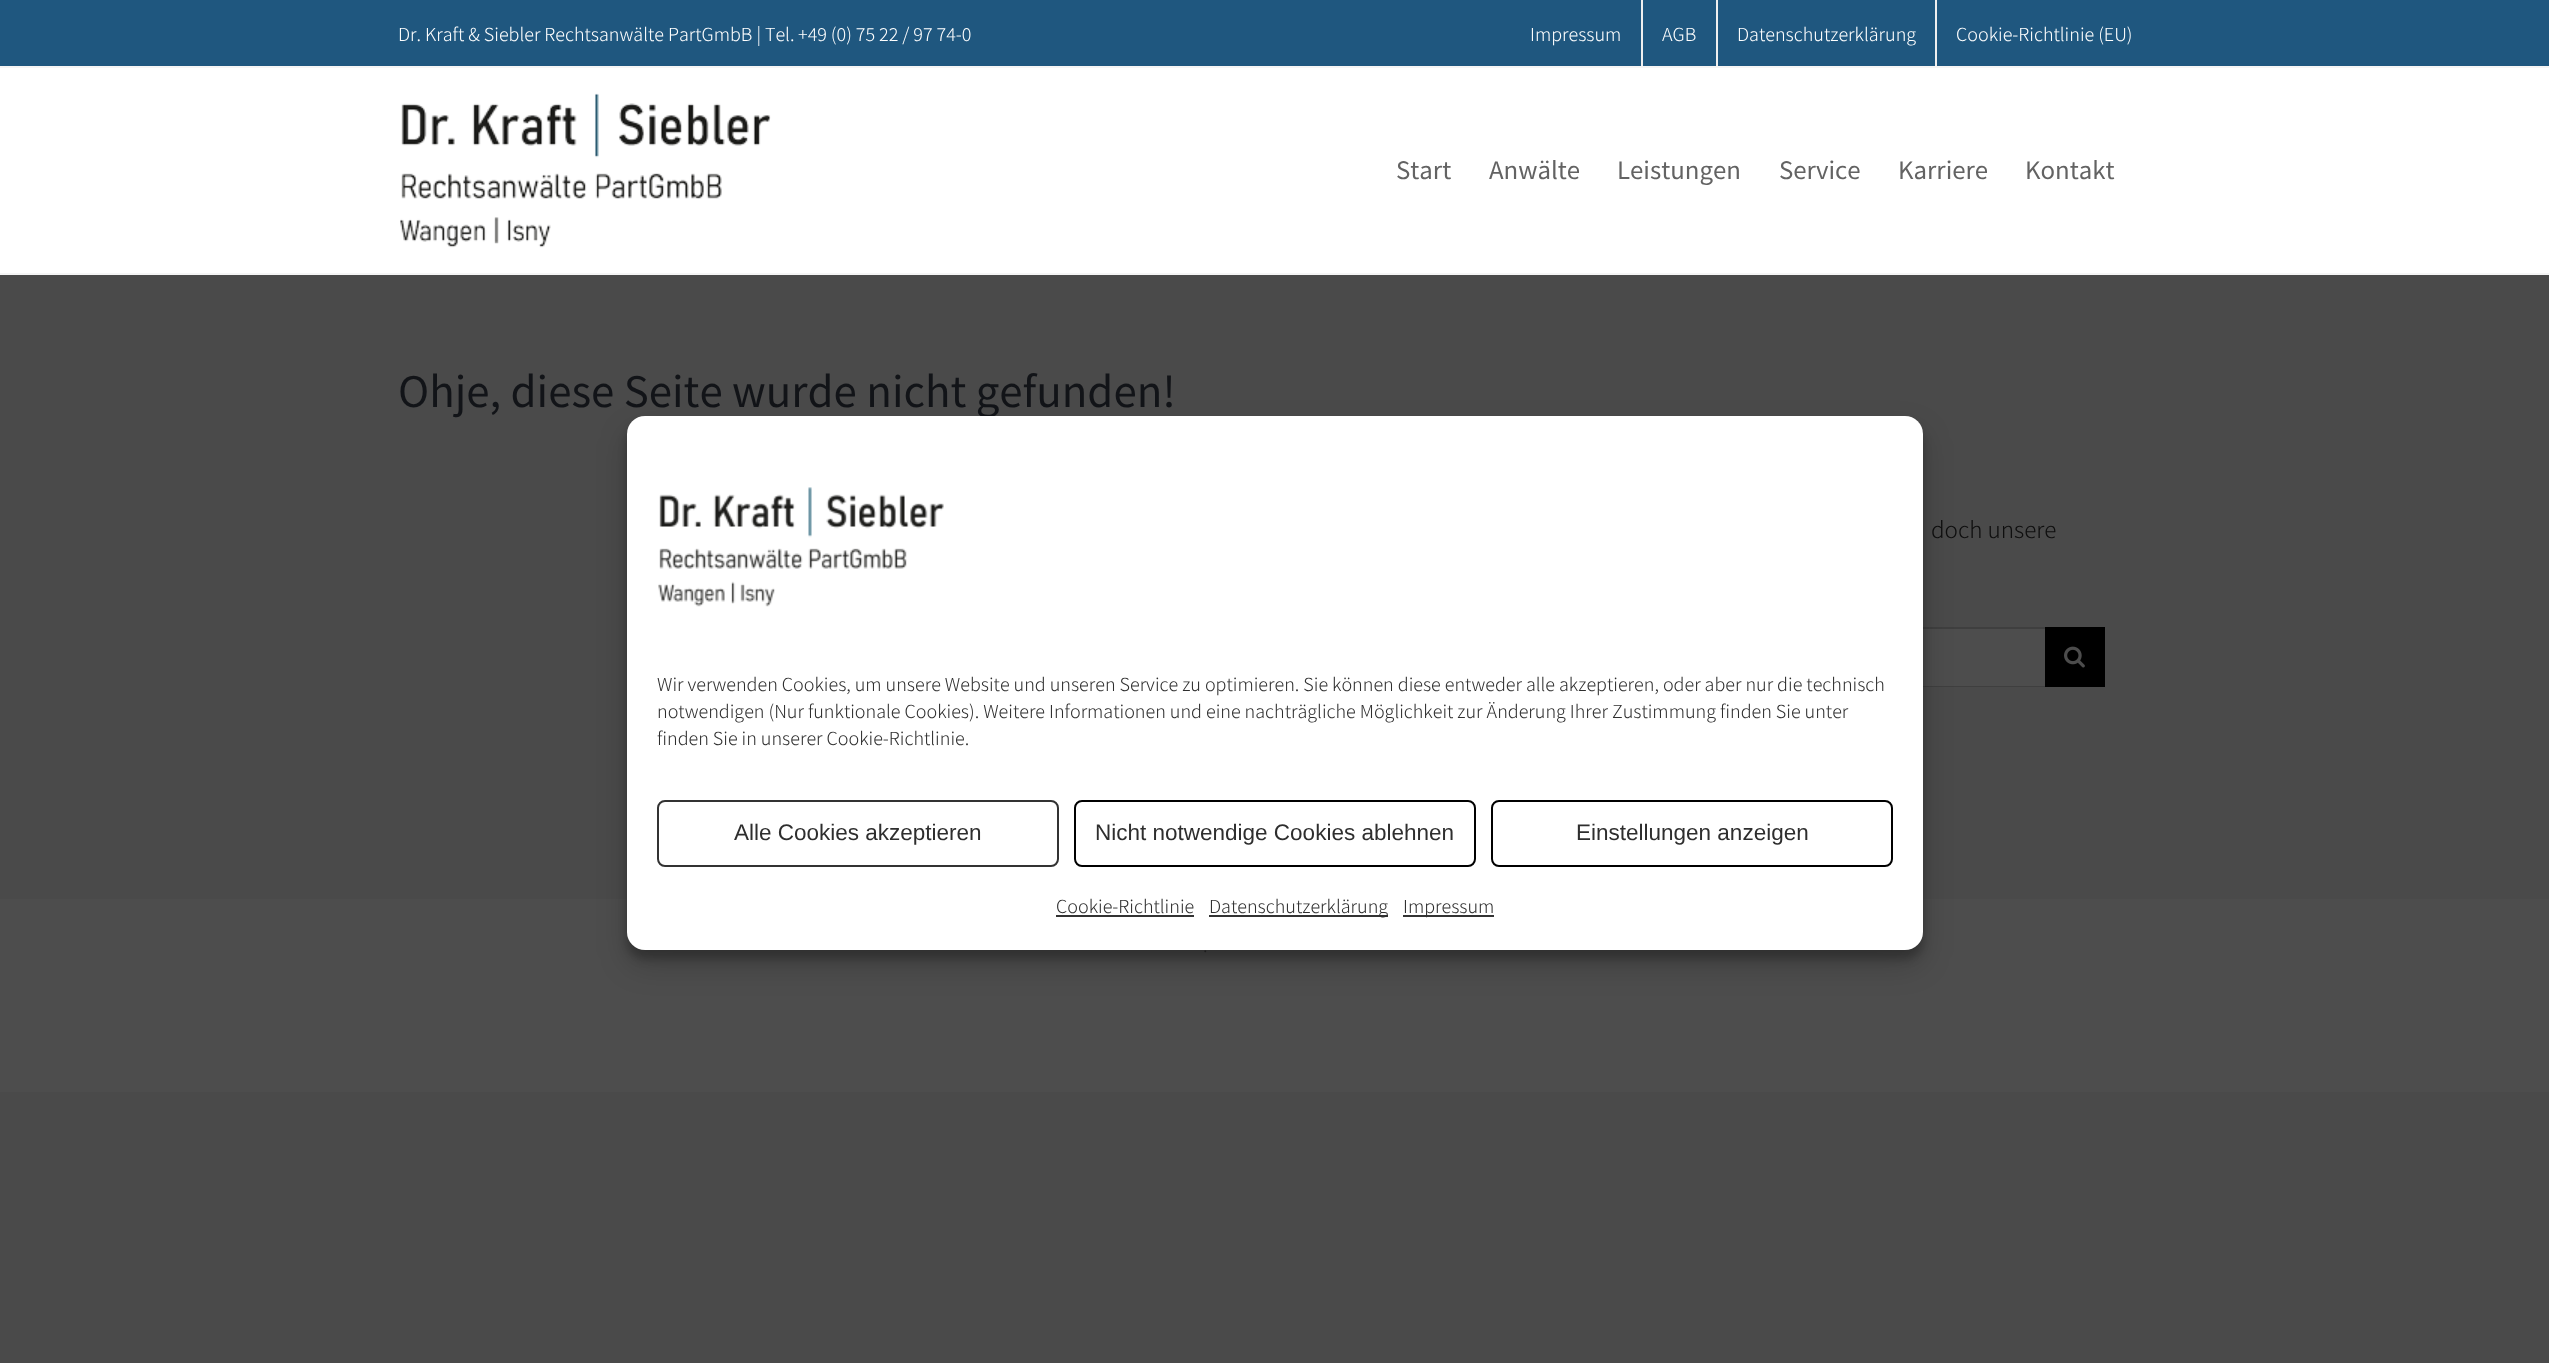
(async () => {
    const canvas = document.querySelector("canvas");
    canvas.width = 2549;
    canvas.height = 1363;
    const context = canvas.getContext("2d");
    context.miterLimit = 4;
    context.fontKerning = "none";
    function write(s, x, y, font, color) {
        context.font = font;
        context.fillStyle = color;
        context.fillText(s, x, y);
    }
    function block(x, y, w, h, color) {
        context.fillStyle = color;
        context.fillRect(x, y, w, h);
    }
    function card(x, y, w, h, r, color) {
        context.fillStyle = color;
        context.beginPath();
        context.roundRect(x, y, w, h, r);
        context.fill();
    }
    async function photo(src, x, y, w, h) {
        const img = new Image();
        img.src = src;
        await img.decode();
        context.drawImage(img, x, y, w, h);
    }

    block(0, 0, 2549, 1363, "rgb(74, 74, 74)");
    block(0, 0, 2549, 66, "rgb(31, 87, 127)");
    block(0, 66, 2549, 2, "rgb(245, 245, 245)");
    write("Dr. Kraft & Siebler Rechtsanwälte PartGmbB | Tel.", 398, 41, "300 18px Noto Sans JP", "rgb(255, 255, 255)");
    write("+49 (0) 75 22 / 97 74-0", 798, 41, "300 18px Noto Sans JP", "rgb(255, 255, 255)");
    write("Impressum", 1530, 41, "300 18px Noto Sans JP", "rgb(255, 255, 255)");
    block(1641, 0, 2, 66, "rgb(239, 239, 239)");
    write("AGB", 1662, 41, "300 18px Noto Sans JP", "rgb(255, 255, 255)");
    block(1716, 0, 2, 66, "rgb(239, 239, 239)");
    write("Datenschutzerklärung", 1737, 41, "300 18px Noto Sans JP", "rgb(255, 255, 255)");
    block(1935, 0, 2, 66, "rgb(239, 239, 239)");
    write("Cookie-Richtlinie (EU)", 1956, 41, "300 18px Noto Sans JP", "rgb(255, 255, 255)");
    block(0, 68, 2549, 205, "rgb(255, 255, 255)");
    block(0, 273, 2549, 2, "rgb(245, 245, 245)");
    await photo("media/1.png", 400, 93, 371, 155);
    write("Start", 1396, 179, "24px Noto Sans JP", "rgb(99, 99, 99)");
    write("Anwälte", 1489, 179, "24px Noto Sans JP", "rgb(99, 99, 99)");
    write("Leistungen", 1617, 179, "24px Noto Sans JP", "rgb(99, 99, 99)");
    write("Service", 1779, 179, "24px Noto Sans JP", "rgb(99, 99, 99)");
    write("Karriere", 1898, 179, "24px Noto Sans JP", "rgb(99, 99, 99)");
    write("Kontakt", 2025, 179, "24px Noto Sans JP", "rgb(99, 99, 99)");
    write("Ohje, diese Seite wurde nicht gefunden!", 398, 407, "42px Noto Sans JP", "rgb(18, 20, 24)");
    write("doch unsere", 1931, 538, "300 22.5px Noto Sans JP", "rgb(14, 14, 14)");
    block(1923, 629, 122, 57, "rgb(77, 77, 77)");
    block(1923, 627, 122, 2, "rgb(63, 63, 63)");
    block(1923, 686, 122, 1, "rgb(63, 63, 63)");
    block(2045, 627, 60, 60, "rgb(0, 0, 0)");
    await photo("media/2.png", 2064, 646, 21, 22);
    block(0, 899, 2549, 193, "rgb(77, 77, 77)");
    write(".", 1203, 952, "300 18px Noto Sans JP", "rgb(46, 46, 46)");
    context.fillStyle = "rgba(0, 0, 0, 0.23)";
    context.filter = "blur(4.5px)";
    context.beginPath();
    context.roundRect(627, 425, 1296, 534, 18);
    context.fill();
    context.filter = "none";
    context.fillStyle = "rgba(0, 0, 0, 0.19)";
    context.filter = "blur(15px)";
    context.beginPath();
    context.roundRect(627, 431, 1296, 534, 18);
    context.fill();
    context.filter = "none";
    card(627, 416, 1296, 534, 18, "rgb(255, 255, 255)");
    await photo("media/3.png", 658, 487, 286, 120);
    write("Wir verwenden Cookies, um unsere Website und unseren Service zu optimieren. Sie können diese entweder alle akzeptieren, oder aber nur die technisch", 657, 691, "300 18px Noto Sans JP", "rgb(46, 46, 46)");
    write("notwendigen (Nur funktionale Cookies). Weitere Informationen und eine nachträgliche Möglichkeit zur Änderung Ihrer Zustimmung", 657, 718, "300 18px Noto Sans JP", "rgb(46, 46, 46)");
    write("finden Sie unter", 1720, 718, "300 18px Noto Sans JP", "rgb(46, 46, 46)");
    write("finden Sie in unserer Cookie-Richtlinie.", 657, 745, "300 18px Noto Sans JP", "rgb(46, 46, 46)");
    context.beginPath();
    context.roundRect(658, 801, 400, 65, 7);
    context.strokeStyle = "rgb(51, 51, 51)";
    context.lineWidth = 2;
    context.stroke();
    write("Alle Cookies akzeptieren", 734, 840, "22.5px Liberation Sans", "rgb(46, 46, 46)");
    context.beginPath();
    context.roundRect(1075, 801, 400, 65, 7);
    context.strokeStyle = "rgb(0, 0, 0)";
    context.stroke();
    write("Nicht notwendige Cookies ablehnen", 1095, 840, "22.5px Liberation Sans", "rgb(46, 46, 46)");
    context.beginPath();
    context.roundRect(1492, 801, 400, 65, 7);
    context.stroke();
    write("Einstellungen anzeigen", 1576, 840, "22.5px Liberation Sans", "rgb(46, 46, 46)");
    write("Cookie-Richtlinie", 1056, 913, "300 18px Noto Sans JP", "rgb(46, 46, 46)");
    block(1056, 915, 138, 2, "rgb(51, 51, 51)");
    block(1209, 915, 179, 2, "rgb(51, 51, 51)");
    write("Datenschutzerklärung", 1209, 913, "300 18px Noto Sans JP", "rgb(46, 46, 46)");
    block(1403, 915, 91, 2, "rgb(51, 51, 51)");
    write("Impressum", 1403, 913, "300 18px Noto Sans JP", "rgb(46, 46, 46)");
})();
